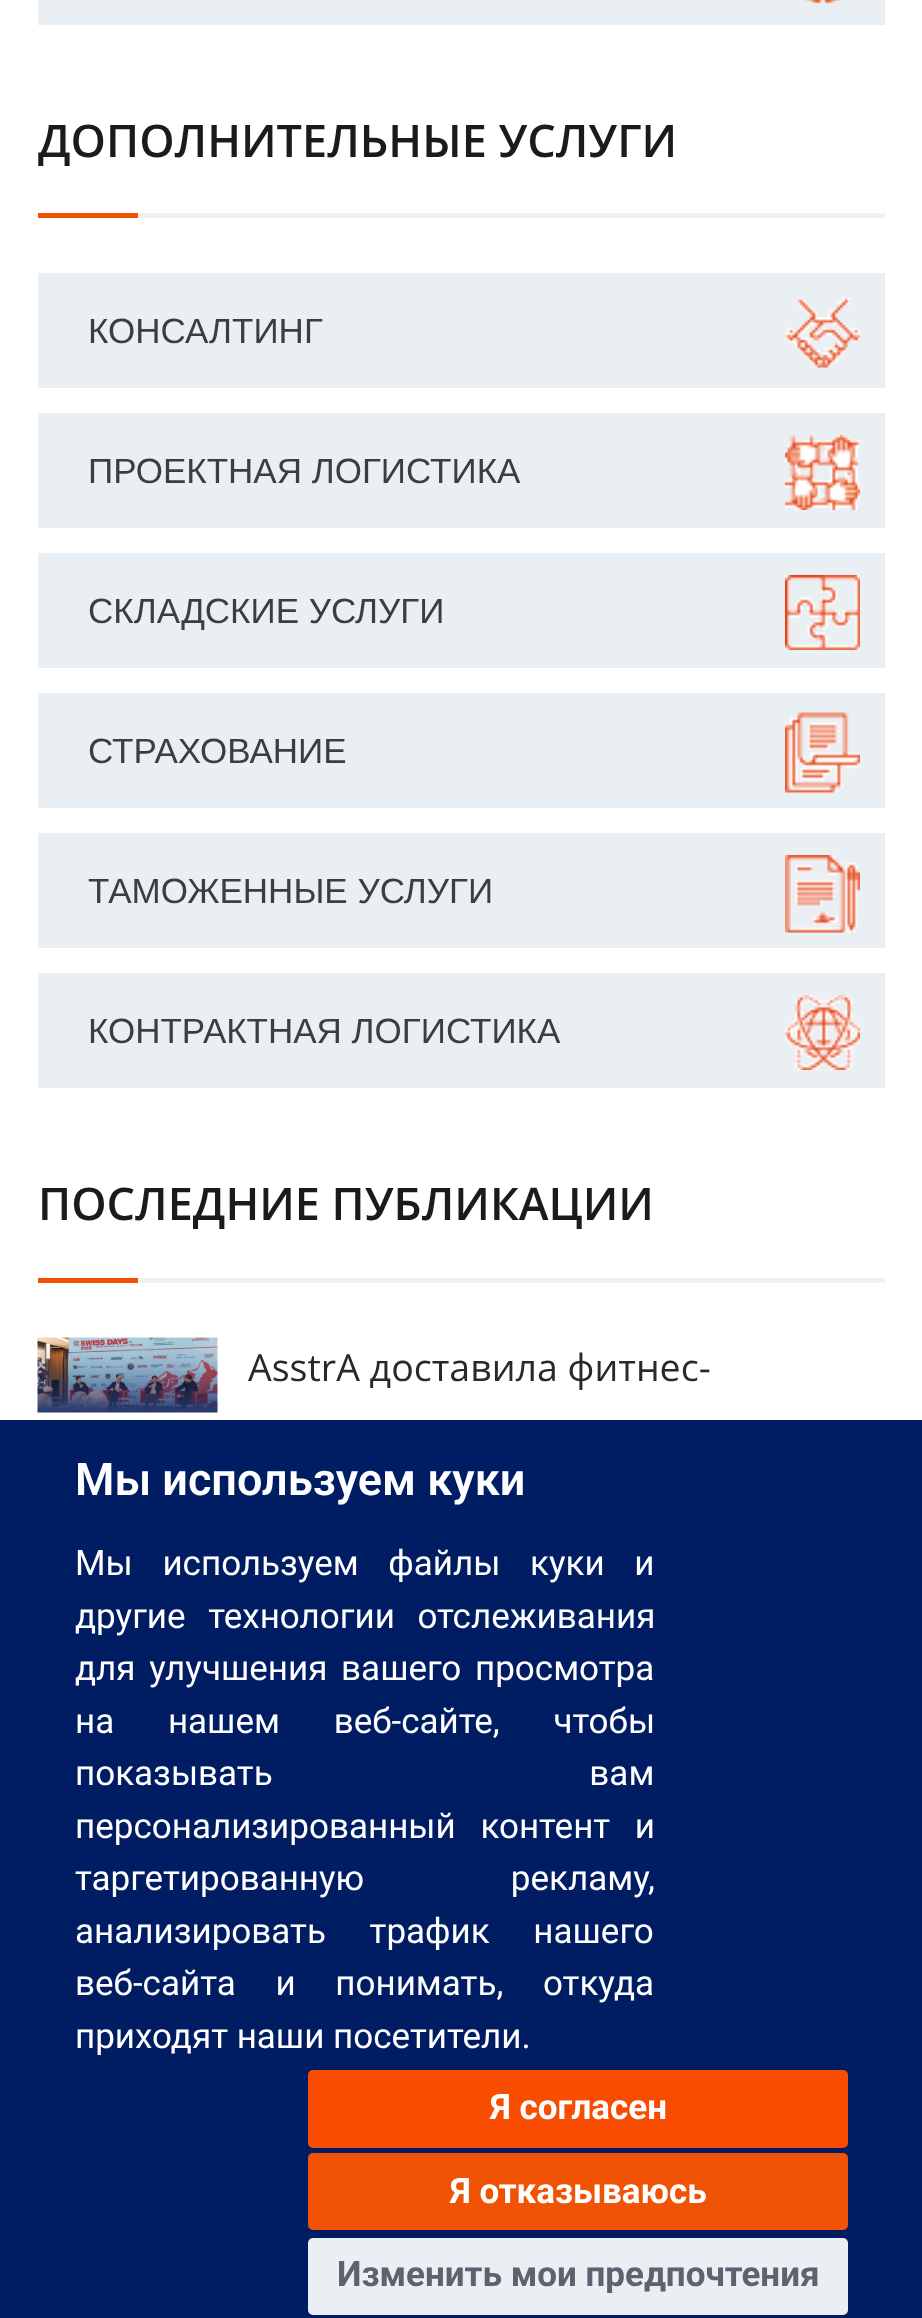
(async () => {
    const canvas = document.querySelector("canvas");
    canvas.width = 922;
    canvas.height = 2318;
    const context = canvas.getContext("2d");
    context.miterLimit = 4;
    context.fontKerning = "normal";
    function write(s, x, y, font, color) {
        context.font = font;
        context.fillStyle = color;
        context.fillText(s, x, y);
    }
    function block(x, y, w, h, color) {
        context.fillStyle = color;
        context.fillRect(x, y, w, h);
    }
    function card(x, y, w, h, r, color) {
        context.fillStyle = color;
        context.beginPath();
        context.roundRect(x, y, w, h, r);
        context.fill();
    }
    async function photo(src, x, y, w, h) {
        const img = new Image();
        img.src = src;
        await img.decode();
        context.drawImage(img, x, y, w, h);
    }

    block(0, 0, 922, 2318, "rgb(255, 255, 255)");
    block(38, 0, 847, 25, "rgb(234, 239, 243)");
    await photo("media/1.png", 804, 0, 38, 4);
    write("ДОПОЛНИТЕЛЬНЫЕ УСЛУГИ", 38, 157, "600 45px Open Sans", "rgb(27, 27, 27)");
    block(38, 213, 100, 5, "rgb(240, 83, 4)");
    block(138, 213, 747, 5, "rgb(241, 241, 241)");
    block(38, 273, 847, 115, "rgb(234, 239, 243)");
    write("КОНСАЛТИНГ", 88, 343, "35px Liberation Sans", "rgb(61, 61, 61)");
    await photo("media/2.png", 785, 297, 75, 71);
    block(38, 413, 847, 115, "rgb(234, 239, 243)");
    write("ПРОЕКТНАЯ ЛОГИСТИКА", 88, 483, "35px Liberation Sans", "rgb(61, 61, 61)");
    await photo("media/3.png", 785, 435, 75, 75);
    block(38, 553, 847, 115, "rgb(234, 239, 243)");
    write("СКЛАДСКИЕ УСЛУГИ", 88, 623, "35px Liberation Sans", "rgb(61, 61, 61)");
    await photo("media/4.png", 785, 575, 75, 75);
    block(38, 693, 847, 115, "rgb(234, 239, 243)");
    write("СТРАХОВАНИЕ", 88, 763, "35px Liberation Sans", "rgb(61, 61, 61)");
    await photo("media/5.png", 785, 712, 75, 81);
    block(38, 833, 847, 115, "rgb(234, 239, 243)");
    write("ТАМОЖЕННЫЕ УСЛУГИ", 88, 903, "35px Liberation Sans", "rgb(61, 61, 61)");
    await photo("media/6.png", 785, 855, 75, 78);
    block(38, 973, 847, 115, "rgb(234, 239, 243)");
    write("КОНТРАКТНАЯ ЛОГИСТИКА", 88, 1043, "35px Liberation Sans", "rgb(61, 61, 61)");
    await photo("media/7.png", 785, 995, 75, 75);
    write("ПОСЛЕДНИЕ ПУБЛИКАЦИИ", 38, 1220, "600 45px Open Sans", "rgb(27, 27, 27)");
    block(38, 1278, 100, 5, "rgb(240, 83, 4)");
    block(138, 1278, 747, 5, "rgb(241, 241, 241)");
    await photo("media/8.png", 37, 1337, 181, 76);
    write("AsstrA доставила фитнес-", 248, 1381, "37.5px Open Sans", "rgb(41, 41, 41)");
    block(0, 1420, 922, 898, "rgb(0, 29, 100)");
    write("Мы используем куки", 75, 1495, "600 45px Roboto", "rgb(255, 255, 255)");
    context.wordSpacing = "21px";
    write("Мы используем файлы куки и", 75, 1575, "35px Roboto", "rgb(255, 255, 255)");
    context.wordSpacing = "14px";
    write("другие технологии отслеживания", 75, 1628, "35px Roboto", "rgb(255, 255, 255)");
    context.wordSpacing = "5px";
    write("для улучшения вашего просмотра", 75, 1680, "35px Roboto", "rgb(255, 255, 255)");
    context.wordSpacing = "45px";
    write("на нашем веб-сайте, чтобы", 75, 1733, "35px Roboto", "rgb(255, 255, 255)");
    context.wordSpacing = "308px";
    write("показывать вам", 75, 1785, "35px Roboto", "rgb(255, 255, 255)");
    context.wordSpacing = "16px";
    write("персонализированный контент и", 75, 1838, "35px Roboto", "rgb(255, 255, 255)");
    context.wordSpacing = "138px";
    write("таргетированную рекламу,", 75, 1890, "35px Roboto", "rgb(255, 255, 255)");
    context.wordSpacing = "35px";
    write("анализировать трафик нашего", 75, 1943, "35px Roboto", "rgb(255, 255, 255)");
    context.wordSpacing = "31px";
    write("веб-сайта и понимать, откуда", 75, 1995, "35px Roboto", "rgb(255, 255, 255)");
    context.wordSpacing = "0px";
    write("приходят наши посетители.", 75, 2048, "35px Roboto", "rgb(255, 255, 255)");
    card(308, 2070, 540, 78, 5, "rgb(248, 76, 0)");
    write("Я согласен", 490, 2119, "bold 35px Roboto", "rgb(255, 255, 255)");
    card(308, 2153, 540, 77, 5, "rgb(240, 83, 4)");
    write("Я отказываюсь", 450, 2203, "bold 35px Roboto", "rgb(255, 255, 255)");
    card(308, 2238, 540, 77, 5, "rgb(234, 239, 243)");
    write("Изменить мои предпочтения", 337, 2286, "bold 35px Roboto", "rgb(95, 97, 113)");
})();
